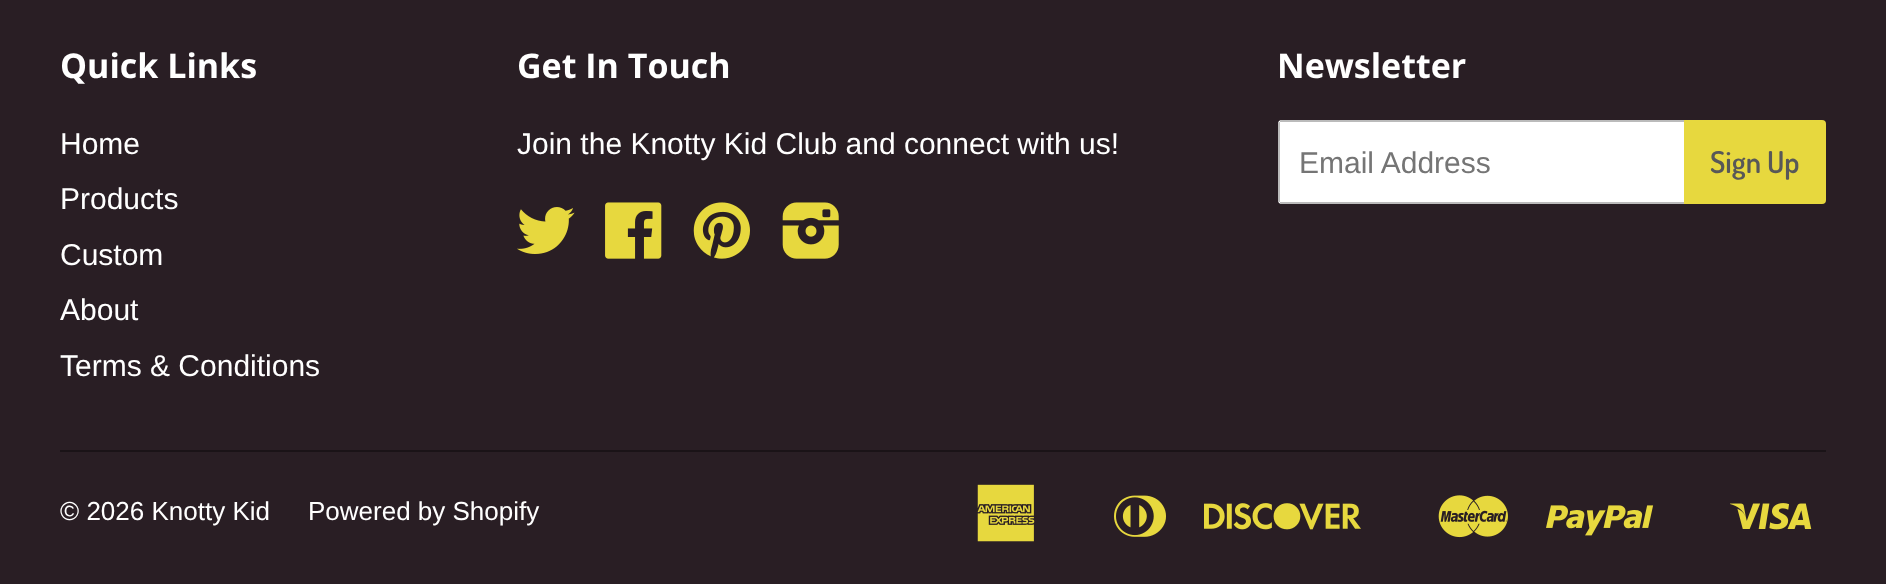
(async () => {
    const canvas = document.querySelector("canvas");
    canvas.width = 1886;
    canvas.height = 584;
    const context = canvas.getContext("2d");
    context.miterLimit = 4;
    context.fontKerning = "normal";
    function write(s, x, y, font, color) {
        context.font = font;
        context.fillStyle = color;
        context.fillText(s, x, y);
    }
    function block(x, y, w, h, color) {
        context.fillStyle = color;
        context.fillRect(x, y, w, h);
    }
    async function photo(src, x, y, w, h) {
        const img = new Image();
        img.src = src;
        await img.decode();
        context.drawImage(img, x, y, w, h);
    }

    block(0, 0, 1886, 584, "rgb(41, 30, 36)");
    write("Quick Links", 60, 78, "bold 34px Open Sans", "rgb(255, 255, 255)");
    write("Home", 60, 154, "30px Liberation Sans", "rgb(255, 255, 255)");
    write("Products", 60, 209, "30px Liberation Sans", "rgb(255, 255, 255)");
    write("Custom", 60, 265, "30px Liberation Sans", "rgb(255, 255, 255)");
    write("About", 60, 320, "30px Liberation Sans", "rgb(255, 255, 255)");
    write("Terms & Conditions", 60, 376, "30px Liberation Sans", "rgb(255, 255, 255)");
    write("Get In Touch", 517, 78, "bold 34px Open Sans", "rgb(255, 255, 255)");
    write("Join the Knotty Kid Club and connect with us!", 517, 154, "30px Liberation Sans", "rgb(255, 255, 255)");
    await photo("media/1.png", 517, 207, 58, 47);
    await photo("media/2.png", 605, 202, 57, 57);
    await photo("media/3.png", 693, 202, 57, 57);
    await photo("media/4.png", 782, 202, 57, 57);
    write("Newsletter", 1277, 78, "bold 34px Open Sans", "rgb(255, 255, 255)");
    context.beginPath();
    context.roundRect(1278, 120, 406, 84, [4, 0, 0, 4]);
    context.fill();
    block(1280, 120, 404, 2, "rgb(187, 187, 187)");
    block(1280, 202, 404, 2, "rgb(187, 187, 187)");
    block(1278, 122, 2, 80, "rgb(187, 187, 187)");
    write("Email Address", 1299, 173, "30px Liberation Sans", "rgb(117, 117, 117)");
    context.fillStyle = "rgb(231, 216, 62)";
    context.beginPath();
    context.roundRect(1684, 120, 142, 84, [0, 4, 4, 0]);
    context.fill();
    write("Sign Up", 1710, 173, "600 30px Dosis", "rgb(88, 88, 88)");
    block(60, 450, 1766, 2, "rgb(26, 19, 23)");
    write("© 2026 Knotty Kid", 60, 520, "26px Liberation Sans", "rgb(255, 255, 255)");
    write("Powered by Shopify", 308, 520, "26px Liberation Sans", "rgb(255, 255, 255)");
    await photo("media/5.png", 977, 484, 58, 58);
    await photo("media/6.png", 1114, 495, 52, 42);
    await photo("media/7.png", 1204, 503, 157, 27);
    await photo("media/8.png", 1438, 495, 70, 43);
    await photo("media/9.png", 1546, 505, 108, 31);
    await photo("media/10.png", 1730, 503, 82, 27);
})();
